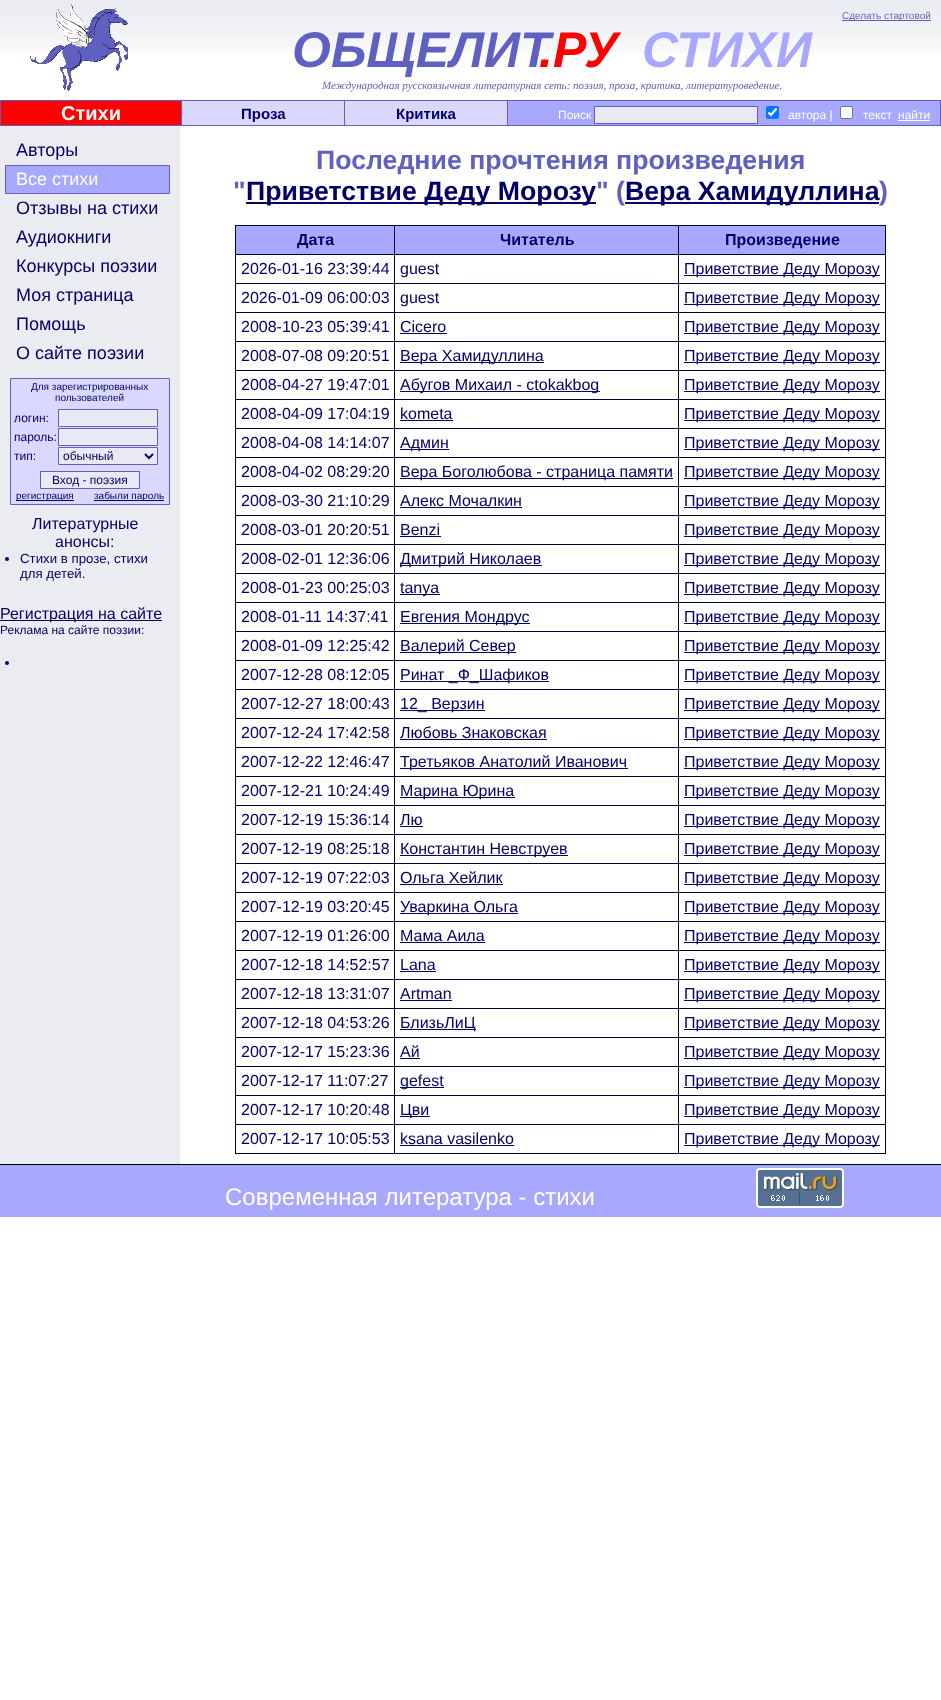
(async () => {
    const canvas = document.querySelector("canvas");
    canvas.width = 941;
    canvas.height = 1700;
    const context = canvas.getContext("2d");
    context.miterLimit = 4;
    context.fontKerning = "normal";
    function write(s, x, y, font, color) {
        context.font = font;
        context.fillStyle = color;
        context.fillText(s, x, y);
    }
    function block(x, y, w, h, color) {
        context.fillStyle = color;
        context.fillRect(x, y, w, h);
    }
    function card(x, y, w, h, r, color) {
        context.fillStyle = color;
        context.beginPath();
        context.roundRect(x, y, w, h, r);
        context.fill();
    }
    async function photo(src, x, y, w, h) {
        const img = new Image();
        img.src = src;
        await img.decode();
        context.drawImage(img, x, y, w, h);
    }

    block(0, 0, 941, 1700, "rgb(255, 255, 255)");
    await photo("media/1.png", 0, 0, 941, 53);
    await photo("media/2.png", 30, 4, 98, 87);
    block(842, 20, 89, 1, "rgb(96, 96, 192)");
    write("Сделать стартовой", 842, 19, "10px Liberation Sans", "rgb(96, 96, 192)");
    write("ОБЩЕЛИТ", 292, 67, "italic bold 50px Liberation Sans", "rgb(96, 96, 192)");
    write(".РУ", 539, 67, "italic bold 50px Liberation Sans", "rgb(255, 0, 0)");
    write("СТИХИ", 642, 67, "italic bold 50px Liberation Sans", "rgb(168, 168, 255)");
    write("Международная русскоязычная литературная сеть: поэзия, проза, критика, литературоведение.", 322, 89, "italic 11px Liberation Serif", "rgb(96, 96, 192)");
    block(0, 100, 941, 26, "rgb(96, 96, 192)");
    block(1, 101, 180, 24, "rgb(255, 0, 0)");
    write("Стихи", 61, 120, "bold 20px Liberation Sans", "rgb(255, 255, 255)");
    block(182, 101, 162, 24, "rgb(217, 217, 255)");
    write("Проза", 241, 119, "bold 15px Liberation Sans", "rgb(0, 0, 102)");
    block(345, 101, 162, 24, "rgb(217, 217, 255)");
    write("Критика", 396, 119, "bold 15px Liberation Sans", "rgb(0, 0, 102)");
    block(508, 101, 432, 24, "rgb(168, 168, 255)");
    write("Поиск", 558, 119, "12px Liberation Sans", "rgb(255, 255, 255)");
    context.fillStyle = "rgb(233, 233, 243)";
    context.beginPath();
    context.rect(594.5, 106.5, 163, 17);
    context.fill();
    context.strokeStyle = "rgb(96, 96, 192)";
    context.stroke();
    card(766, 106, 13, 13, 2, "rgb(0, 117, 255)");
    context.beginPath();
    context.moveTo(768.5, 112.5);
    context.lineTo(771, 115);
    context.lineTo(776.5, 108.5);
    context.strokeStyle = "rgb(255, 255, 255)";
    context.lineWidth = 2.1;
    context.stroke();
    write("автора |", 788, 119, "12px Liberation Sans", "rgb(255, 255, 255)");
    context.beginPath();
    context.roundRect(840.5, 106.5, 12, 12, 1.5);
    context.fill();
    context.strokeStyle = "rgb(118, 118, 118)";
    context.lineWidth = 1;
    context.stroke();
    write("текст", 863, 119, "12px Liberation Sans", "rgb(255, 255, 255)");
    write("найти", 898, 119, "12px Liberation Sans", "rgb(255, 255, 255)");
    block(898, 120, 32, 1, "rgb(255, 255, 255)");
    block(0, 126, 180, 1038, "rgb(235, 236, 241)");
    write("Авторы", 16, 156, "18px Liberation Sans", "rgb(0, 0, 102)");
    context.fillStyle = "rgb(168, 168, 255)";
    context.beginPath();
    context.rect(5.5, 165.5, 164, 28);
    context.fill();
    context.strokeStyle = "rgb(96, 96, 192)";
    context.stroke();
    write("Все стихи", 16, 185, "18px Liberation Sans", "rgb(255, 255, 255)");
    write("Отзывы на стихи", 16, 214, "18px Liberation Sans", "rgb(0, 0, 102)");
    write("Аудиокниги", 16, 243, "18px Liberation Sans", "rgb(0, 0, 102)");
    write("Конкурсы поэзии", 16, 272, "18px Liberation Sans", "rgb(0, 0, 102)");
    write("Моя страница", 16, 301, "18px Liberation Sans", "rgb(0, 0, 102)");
    write("Помощь", 16, 330, "18px Liberation Sans", "rgb(0, 0, 102)");
    write("О сайте поэзии", 16, 359, "18px Liberation Sans", "rgb(0, 0, 102)");
    context.fillStyle = "rgb(217, 217, 255)";
    context.beginPath();
    context.rect(10.5, 378.5, 159, 126);
    context.fill();
    context.stroke();
    write("Для зарегистрированных", 31, 390, "10px Liberation Sans", "rgb(0, 0, 102)");
    write("пользователей", 55, 401, "10px Liberation Sans", "rgb(0, 0, 102)");
    write("логин:", 14, 422, "12px Liberation Sans", "rgb(0, 0, 102)");
    context.fillStyle = "rgb(233, 233, 243)";
    context.beginPath();
    context.rect(58.5, 409.5, 99, 17);
    context.fill();
    context.stroke();
    write("пароль:", 14, 441, "12px Liberation Sans", "rgb(0, 0, 102)");
    context.fillStyle = "rgb(233, 233, 243)";
    context.beginPath();
    context.rect(58.5, 428.5, 99, 17);
    context.fill();
    context.stroke();
    write("тип:", 14, 460, "12px Liberation Sans", "rgb(0, 0, 102)");
    context.fillStyle = "rgb(233, 233, 243)";
    context.beginPath();
    context.rect(58.5, 447.5, 99, 17);
    context.fill();
    context.stroke();
    context.beginPath();
    context.moveTo(145, 454);
    context.lineTo(149, 458);
    context.lineTo(153, 454);
    context.strokeStyle = "rgb(0, 0, 102)";
    context.lineWidth = 2;
    context.stroke();
    write("обычный", 63, 460, "12px Liberation Sans", "rgb(0, 0, 102)");
    context.fillStyle = "rgb(233, 233, 243)";
    context.beginPath();
    context.rect(40.5, 471.5, 99, 17);
    context.fill();
    context.strokeStyle = "rgb(96, 96, 192)";
    context.lineWidth = 1;
    context.stroke();
    write("Вход - поэзия", 52, 484, "12px Liberation Sans", "rgb(0, 0, 102)");
    block(16, 500, 58, 1, "rgb(0, 0, 102)");
    write("регистрация", 16, 499, "10px Liberation Sans", "rgb(0, 0, 102)");
    block(94, 500, 70, 1, "rgb(0, 0, 102)");
    write("забыли пароль", 94, 499, "10px Liberation Sans", "rgb(0, 0, 102)");
    write("Литературные", 32, 529, "16px Liberation Sans", "rgb(0, 0, 102)");
    write("анонсы:", 55, 547, "16px Liberation Sans", "rgb(0, 0, 102)");
    context.beginPath();
    context.arc(7, 559, 2, 0, Math.PI * 2);
    context.fill();
    write("Стихи в прозе, стихи", 20, 563, "13.25px Liberation Sans", "rgb(0, 0, 102)");
    write("для детей.", 20, 578, "13.25px Liberation Sans", "rgb(0, 0, 102)");
    block(0, 620, 162, 1, "rgb(0, 0, 102)");
    write("Регистрация на сайте", 0, 619, "16px Liberation Sans", "rgb(0, 0, 102)");
    write("Реклама на сайте поэзии:", 0, 634, "12px Liberation Sans", "rgb(0, 0, 102)");
    context.beginPath();
    context.arc(7, 663, 2, 0, Math.PI * 2);
    context.fill();
    write("Последние прочтения произведения", 316, 169, "bold 26.7px Liberation Sans", "rgb(96, 96, 192)");
    write("\"", 233, 200, "bold 26.7px Liberation Sans", "rgb(96, 96, 192)");
    block(246, 202, 350, 2, "rgb(0, 0, 102)");
    write("Приветствие Деду Морозу", 246, 200, "bold 26.7px Liberation Sans", "rgb(0, 0, 102)");
    write("\" (", 596, 200, "bold 26.7px Liberation Sans", "rgb(96, 96, 192)");
    block(625, 202, 254, 2, "rgb(0, 0, 102)");
    write("Вера Хамидуллина", 625, 200, "bold 26.7px Liberation Sans", "rgb(0, 0, 102)");
    write(")", 879, 200, "bold 26.7px Liberation Sans", "rgb(96, 96, 192)");
    block(235, 225, 651, 929, "rgb(0, 0, 51)");
    block(236, 226, 158, 28, "rgb(168, 168, 255)");
    write("Дата", 297, 245, "bold 16px Liberation Sans", "rgb(0, 0, 102)");
    block(395, 226, 283, 28, "rgb(168, 168, 255)");
    write("Читатель", 500, 245, "bold 16px Liberation Sans", "rgb(0, 0, 102)");
    block(679, 226, 206, 28, "rgb(168, 168, 255)");
    write("Произведение", 725, 245, "bold 16px Liberation Sans", "rgb(0, 0, 102)");
    block(236, 255, 158, 28, "rgb(255, 255, 255)");
    write("2026-01-16 23:39:44", 241, 274, "16px Liberation Sans", "rgb(0, 0, 102)");
    block(395, 255, 283, 28, "rgb(255, 255, 255)");
    write("guest", 400, 274, "16px Liberation Sans", "rgb(0, 0, 102)");
    block(679, 255, 206, 28, "rgb(255, 255, 255)");
    block(684, 275, 196, 1, "rgb(0, 0, 102)");
    write("Приветствие Деду Морозу", 684, 274, "16px Liberation Sans", "rgb(0, 0, 102)");
    block(236, 284, 158, 28, "rgb(255, 255, 255)");
    write("2026-01-09 06:00:03", 241, 303, "16px Liberation Sans", "rgb(0, 0, 102)");
    block(395, 284, 283, 28, "rgb(255, 255, 255)");
    write("guest", 400, 303, "16px Liberation Sans", "rgb(0, 0, 102)");
    block(679, 284, 206, 28, "rgb(255, 255, 255)");
    block(684, 304, 196, 1, "rgb(0, 0, 102)");
    write("Приветствие Деду Морозу", 684, 303, "16px Liberation Sans", "rgb(0, 0, 102)");
    block(236, 313, 158, 28, "rgb(255, 255, 255)");
    write("2008-10-23 05:39:41", 241, 332, "16px Liberation Sans", "rgb(0, 0, 102)");
    block(395, 313, 283, 28, "rgb(255, 255, 255)");
    write("Cicero", 400, 332, "16px Liberation Sans", "rgb(0, 0, 102)");
    block(400, 333, 47, 1, "rgb(0, 0, 102)");
    block(679, 313, 206, 28, "rgb(255, 255, 255)");
    block(684, 333, 196, 1, "rgb(0, 0, 102)");
    write("Приветствие Деду Морозу", 684, 332, "16px Liberation Sans", "rgb(0, 0, 102)");
    block(236, 342, 158, 28, "rgb(255, 255, 255)");
    write("2008-07-08 09:20:51", 241, 361, "16px Liberation Sans", "rgb(0, 0, 102)");
    block(395, 342, 283, 28, "rgb(255, 255, 255)");
    block(400, 362, 144, 1, "rgb(0, 0, 102)");
    write("Вера Хамидуллина", 400, 361, "16px Liberation Sans", "rgb(0, 0, 102)");
    block(679, 342, 206, 28, "rgb(255, 255, 255)");
    block(684, 362, 196, 1, "rgb(0, 0, 102)");
    write("Приветствие Деду Морозу", 684, 361, "16px Liberation Sans", "rgb(0, 0, 102)");
    block(236, 371, 158, 28, "rgb(255, 255, 255)");
    write("2008-04-27 19:47:01", 241, 390, "16px Liberation Sans", "rgb(0, 0, 102)");
    block(395, 371, 283, 28, "rgb(255, 255, 255)");
    block(400, 391, 200, 1, "rgb(0, 0, 102)");
    write("Абугов Михаил - ctokakbog", 400, 390, "16px Liberation Sans", "rgb(0, 0, 102)");
    block(679, 371, 206, 28, "rgb(255, 255, 255)");
    block(684, 391, 196, 1, "rgb(0, 0, 102)");
    write("Приветствие Деду Морозу", 684, 390, "16px Liberation Sans", "rgb(0, 0, 102)");
    block(236, 400, 158, 28, "rgb(255, 255, 255)");
    write("2008-04-09 17:04:19", 241, 419, "16px Liberation Sans", "rgb(0, 0, 102)");
    block(395, 400, 283, 28, "rgb(255, 255, 255)");
    write("kometa", 400, 419, "16px Liberation Sans", "rgb(0, 0, 102)");
    block(400, 420, 53, 1, "rgb(0, 0, 102)");
    block(679, 400, 206, 28, "rgb(255, 255, 255)");
    block(684, 420, 196, 1, "rgb(0, 0, 102)");
    write("Приветствие Деду Морозу", 684, 419, "16px Liberation Sans", "rgb(0, 0, 102)");
    block(236, 429, 158, 28, "rgb(255, 255, 255)");
    write("2008-04-08 14:14:07", 241, 448, "16px Liberation Sans", "rgb(0, 0, 102)");
    block(395, 429, 283, 28, "rgb(255, 255, 255)");
    block(400, 449, 49, 1, "rgb(0, 0, 102)");
    write("Админ", 400, 448, "16px Liberation Sans", "rgb(0, 0, 102)");
    block(679, 429, 206, 28, "rgb(255, 255, 255)");
    block(684, 449, 196, 1, "rgb(0, 0, 102)");
    write("Приветствие Деду Морозу", 684, 448, "16px Liberation Sans", "rgb(0, 0, 102)");
    block(236, 458, 158, 28, "rgb(255, 255, 255)");
    write("2008-04-02 08:29:20", 241, 477, "16px Liberation Sans", "rgb(0, 0, 102)");
    block(395, 458, 283, 28, "rgb(255, 255, 255)");
    block(400, 478, 273, 1, "rgb(0, 0, 102)");
    write("Вера Боголюбова - страница памяти", 400, 477, "16px Liberation Sans", "rgb(0, 0, 102)");
    block(679, 458, 206, 28, "rgb(255, 255, 255)");
    block(684, 478, 196, 1, "rgb(0, 0, 102)");
    write("Приветствие Деду Морозу", 684, 477, "16px Liberation Sans", "rgb(0, 0, 102)");
    block(236, 487, 158, 28, "rgb(255, 255, 255)");
    write("2008-03-30 21:10:29", 241, 506, "16px Liberation Sans", "rgb(0, 0, 102)");
    block(395, 487, 283, 28, "rgb(255, 255, 255)");
    write("Алекс Мочалкин", 400, 506, "16px Liberation Sans", "rgb(0, 0, 102)");
    block(400, 507, 122, 1, "rgb(0, 0, 102)");
    block(679, 487, 206, 28, "rgb(255, 255, 255)");
    block(684, 507, 196, 1, "rgb(0, 0, 102)");
    write("Приветствие Деду Морозу", 684, 506, "16px Liberation Sans", "rgb(0, 0, 102)");
    block(236, 516, 158, 28, "rgb(255, 255, 255)");
    write("2008-03-01 20:20:51", 241, 535, "16px Liberation Sans", "rgb(0, 0, 102)");
    block(395, 516, 283, 28, "rgb(255, 255, 255)");
    write("Benzi", 400, 535, "16px Liberation Sans", "rgb(0, 0, 102)");
    block(400, 536, 41, 1, "rgb(0, 0, 102)");
    block(679, 516, 206, 28, "rgb(255, 255, 255)");
    block(684, 536, 196, 1, "rgb(0, 0, 102)");
    write("Приветствие Деду Морозу", 684, 535, "16px Liberation Sans", "rgb(0, 0, 102)");
    block(236, 545, 158, 28, "rgb(255, 255, 255)");
    write("2008-02-01 12:36:06", 241, 564, "16px Liberation Sans", "rgb(0, 0, 102)");
    block(395, 545, 283, 28, "rgb(255, 255, 255)");
    block(400, 565, 142, 1, "rgb(0, 0, 102)");
    write("Дмитрий Николаев", 400, 564, "16px Liberation Sans", "rgb(0, 0, 102)");
    block(679, 545, 206, 28, "rgb(255, 255, 255)");
    block(684, 565, 196, 1, "rgb(0, 0, 102)");
    write("Приветствие Деду Морозу", 684, 564, "16px Liberation Sans", "rgb(0, 0, 102)");
    block(236, 574, 158, 28, "rgb(255, 255, 255)");
    write("2008-01-23 00:25:03", 241, 593, "16px Liberation Sans", "rgb(0, 0, 102)");
    block(395, 574, 283, 28, "rgb(255, 255, 255)");
    block(400, 594, 40, 1, "rgb(0, 0, 102)");
    write("tanya", 400, 593, "16px Liberation Sans", "rgb(0, 0, 102)");
    block(679, 574, 206, 28, "rgb(255, 255, 255)");
    block(684, 594, 196, 1, "rgb(0, 0, 102)");
    write("Приветствие Деду Морозу", 684, 593, "16px Liberation Sans", "rgb(0, 0, 102)");
    block(236, 603, 158, 28, "rgb(255, 255, 255)");
    write("2008-01-11 14:37:41", 241, 622, "16px Liberation Sans", "rgb(0, 0, 102)");
    block(395, 603, 283, 28, "rgb(255, 255, 255)");
    block(400, 623, 130, 1, "rgb(0, 0, 102)");
    write("Евгения Мондрус", 400, 622, "16px Liberation Sans", "rgb(0, 0, 102)");
    block(679, 603, 206, 28, "rgb(255, 255, 255)");
    block(684, 623, 196, 1, "rgb(0, 0, 102)");
    write("Приветствие Деду Морозу", 684, 622, "16px Liberation Sans", "rgb(0, 0, 102)");
    block(236, 632, 158, 28, "rgb(255, 255, 255)");
    write("2008-01-09 12:25:42", 241, 651, "16px Liberation Sans", "rgb(0, 0, 102)");
    block(395, 632, 283, 28, "rgb(255, 255, 255)");
    block(400, 652, 116, 1, "rgb(0, 0, 102)");
    write("Валерий Север", 400, 651, "16px Liberation Sans", "rgb(0, 0, 102)");
    block(679, 632, 206, 28, "rgb(255, 255, 255)");
    block(684, 652, 196, 1, "rgb(0, 0, 102)");
    write("Приветствие Деду Морозу", 684, 651, "16px Liberation Sans", "rgb(0, 0, 102)");
    block(236, 661, 158, 28, "rgb(255, 255, 255)");
    write("2007-12-28 08:12:05", 241, 680, "16px Liberation Sans", "rgb(0, 0, 102)");
    block(395, 661, 283, 28, "rgb(255, 255, 255)");
    block(400, 681, 149, 1, "rgb(0, 0, 102)");
    write("Ринат _Ф_Шафиков", 400, 680, "16px Liberation Sans", "rgb(0, 0, 102)");
    block(679, 661, 206, 28, "rgb(255, 255, 255)");
    block(684, 681, 196, 1, "rgb(0, 0, 102)");
    write("Приветствие Деду Морозу", 684, 680, "16px Liberation Sans", "rgb(0, 0, 102)");
    block(236, 690, 158, 28, "rgb(255, 255, 255)");
    write("2007-12-27 18:00:43", 241, 709, "16px Liberation Sans", "rgb(0, 0, 102)");
    block(395, 690, 283, 28, "rgb(255, 255, 255)");
    block(400, 710, 85, 1, "rgb(0, 0, 102)");
    write("12_ Верзин", 400, 709, "16px Liberation Sans", "rgb(0, 0, 102)");
    block(679, 690, 206, 28, "rgb(255, 255, 255)");
    block(684, 710, 196, 1, "rgb(0, 0, 102)");
    write("Приветствие Деду Морозу", 684, 709, "16px Liberation Sans", "rgb(0, 0, 102)");
    block(236, 719, 158, 28, "rgb(255, 255, 255)");
    write("2007-12-24 17:42:58", 241, 738, "16px Liberation Sans", "rgb(0, 0, 102)");
    block(395, 719, 283, 28, "rgb(255, 255, 255)");
    write("Любовь Знаковская", 400, 738, "16px Liberation Sans", "rgb(0, 0, 102)");
    block(400, 739, 147, 1, "rgb(0, 0, 102)");
    block(679, 719, 206, 28, "rgb(255, 255, 255)");
    block(684, 739, 196, 1, "rgb(0, 0, 102)");
    write("Приветствие Деду Морозу", 684, 738, "16px Liberation Sans", "rgb(0, 0, 102)");
    block(236, 748, 158, 28, "rgb(255, 255, 255)");
    write("2007-12-22 12:46:47", 241, 767, "16px Liberation Sans", "rgb(0, 0, 102)");
    block(395, 748, 283, 28, "rgb(255, 255, 255)");
    block(400, 768, 228, 1, "rgb(0, 0, 102)");
    write("Третьяков Анатолий Иванович", 400, 767, "16px Liberation Sans", "rgb(0, 0, 102)");
    block(679, 748, 206, 28, "rgb(255, 255, 255)");
    block(684, 768, 196, 1, "rgb(0, 0, 102)");
    write("Приветствие Деду Морозу", 684, 767, "16px Liberation Sans", "rgb(0, 0, 102)");
    block(236, 777, 158, 28, "rgb(255, 255, 255)");
    write("2007-12-21 10:24:49", 241, 796, "16px Liberation Sans", "rgb(0, 0, 102)");
    block(395, 777, 283, 28, "rgb(255, 255, 255)");
    block(400, 797, 115, 1, "rgb(0, 0, 102)");
    write("Марина Юрина", 400, 796, "16px Liberation Sans", "rgb(0, 0, 102)");
    block(679, 777, 206, 28, "rgb(255, 255, 255)");
    block(684, 797, 196, 1, "rgb(0, 0, 102)");
    write("Приветствие Деду Морозу", 684, 796, "16px Liberation Sans", "rgb(0, 0, 102)");
    block(236, 806, 158, 28, "rgb(255, 255, 255)");
    write("2007-12-19 15:36:14", 241, 825, "16px Liberation Sans", "rgb(0, 0, 102)");
    block(395, 806, 283, 28, "rgb(255, 255, 255)");
    write("Лю", 400, 825, "16px Liberation Sans", "rgb(0, 0, 102)");
    block(400, 826, 23, 1, "rgb(0, 0, 102)");
    block(679, 806, 206, 28, "rgb(255, 255, 255)");
    block(684, 826, 196, 1, "rgb(0, 0, 102)");
    write("Приветствие Деду Морозу", 684, 825, "16px Liberation Sans", "rgb(0, 0, 102)");
    block(236, 835, 158, 28, "rgb(255, 255, 255)");
    write("2007-12-19 08:25:18", 241, 854, "16px Liberation Sans", "rgb(0, 0, 102)");
    block(395, 835, 283, 28, "rgb(255, 255, 255)");
    block(400, 855, 168, 1, "rgb(0, 0, 102)");
    write("Константин Невструев", 400, 854, "16px Liberation Sans", "rgb(0, 0, 102)");
    block(679, 835, 206, 28, "rgb(255, 255, 255)");
    block(684, 855, 196, 1, "rgb(0, 0, 102)");
    write("Приветствие Деду Морозу", 684, 854, "16px Liberation Sans", "rgb(0, 0, 102)");
    block(236, 864, 158, 28, "rgb(255, 255, 255)");
    write("2007-12-19 07:22:03", 241, 883, "16px Liberation Sans", "rgb(0, 0, 102)");
    block(395, 864, 283, 28, "rgb(255, 255, 255)");
    write("Ольга Хейлик", 400, 883, "16px Liberation Sans", "rgb(0, 0, 102)");
    block(400, 884, 103, 1, "rgb(0, 0, 102)");
    block(679, 864, 206, 28, "rgb(255, 255, 255)");
    block(684, 884, 196, 1, "rgb(0, 0, 102)");
    write("Приветствие Деду Морозу", 684, 883, "16px Liberation Sans", "rgb(0, 0, 102)");
    block(236, 893, 158, 28, "rgb(255, 255, 255)");
    write("2007-12-19 03:20:45", 241, 912, "16px Liberation Sans", "rgb(0, 0, 102)");
    block(395, 893, 283, 28, "rgb(255, 255, 255)");
    block(400, 913, 118, 1, "rgb(0, 0, 102)");
    write("Уваркина Ольга", 400, 912, "16px Liberation Sans", "rgb(0, 0, 102)");
    block(679, 893, 206, 28, "rgb(255, 255, 255)");
    block(684, 913, 196, 1, "rgb(0, 0, 102)");
    write("Приветствие Деду Морозу", 684, 912, "16px Liberation Sans", "rgb(0, 0, 102)");
    block(236, 922, 158, 28, "rgb(255, 255, 255)");
    write("2007-12-19 01:26:00", 241, 941, "16px Liberation Sans", "rgb(0, 0, 102)");
    block(395, 922, 283, 28, "rgb(255, 255, 255)");
    write("Мама Аила", 400, 941, "16px Liberation Sans", "rgb(0, 0, 102)");
    block(400, 942, 85, 1, "rgb(0, 0, 102)");
    block(679, 922, 206, 28, "rgb(255, 255, 255)");
    block(684, 942, 196, 1, "rgb(0, 0, 102)");
    write("Приветствие Деду Морозу", 684, 941, "16px Liberation Sans", "rgb(0, 0, 102)");
    block(236, 951, 158, 28, "rgb(255, 255, 255)");
    write("2007-12-18 14:52:57", 241, 970, "16px Liberation Sans", "rgb(0, 0, 102)");
    block(395, 951, 283, 28, "rgb(255, 255, 255)");
    write("Lana", 400, 970, "16px Liberation Sans", "rgb(0, 0, 102)");
    block(400, 971, 36, 1, "rgb(0, 0, 102)");
    block(679, 951, 206, 28, "rgb(255, 255, 255)");
    block(684, 971, 196, 1, "rgb(0, 0, 102)");
    write("Приветствие Деду Морозу", 684, 970, "16px Liberation Sans", "rgb(0, 0, 102)");
    block(236, 980, 158, 28, "rgb(255, 255, 255)");
    write("2007-12-18 13:31:07", 241, 999, "16px Liberation Sans", "rgb(0, 0, 102)");
    block(395, 980, 283, 28, "rgb(255, 255, 255)");
    write("Artman", 400, 999, "16px Liberation Sans", "rgb(0, 0, 102)");
    block(400, 1000, 52, 1, "rgb(0, 0, 102)");
    block(679, 980, 206, 28, "rgb(255, 255, 255)");
    block(684, 1000, 196, 1, "rgb(0, 0, 102)");
    write("Приветствие Деду Морозу", 684, 999, "16px Liberation Sans", "rgb(0, 0, 102)");
    block(236, 1009, 158, 28, "rgb(255, 255, 255)");
    write("2007-12-18 04:53:26", 241, 1028, "16px Liberation Sans", "rgb(0, 0, 102)");
    block(395, 1009, 283, 28, "rgb(255, 255, 255)");
    block(400, 1029, 76, 1, "rgb(0, 0, 102)");
    write("БлизьЛиЦ", 400, 1028, "16px Liberation Sans", "rgb(0, 0, 102)");
    block(679, 1009, 206, 28, "rgb(255, 255, 255)");
    block(684, 1029, 196, 1, "rgb(0, 0, 102)");
    write("Приветствие Деду Морозу", 684, 1028, "16px Liberation Sans", "rgb(0, 0, 102)");
    block(236, 1038, 158, 28, "rgb(255, 255, 255)");
    write("2007-12-17 15:23:36", 241, 1057, "16px Liberation Sans", "rgb(0, 0, 102)");
    block(395, 1038, 283, 28, "rgb(255, 255, 255)");
    write("Ай", 400, 1057, "16px Liberation Sans", "rgb(0, 0, 102)");
    block(400, 1058, 20, 1, "rgb(0, 0, 102)");
    block(679, 1038, 206, 28, "rgb(255, 255, 255)");
    block(684, 1058, 196, 1, "rgb(0, 0, 102)");
    write("Приветствие Деду Морозу", 684, 1057, "16px Liberation Sans", "rgb(0, 0, 102)");
    block(236, 1067, 158, 28, "rgb(255, 255, 255)");
    write("2007-12-17 11:07:27", 241, 1086, "16px Liberation Sans", "rgb(0, 0, 102)");
    block(395, 1067, 283, 28, "rgb(255, 255, 255)");
    block(400, 1087, 44, 1, "rgb(0, 0, 102)");
    write("gefest", 400, 1086, "16px Liberation Sans", "rgb(0, 0, 102)");
    block(679, 1067, 206, 28, "rgb(255, 255, 255)");
    block(684, 1087, 196, 1, "rgb(0, 0, 102)");
    write("Приветствие Деду Морозу", 684, 1086, "16px Liberation Sans", "rgb(0, 0, 102)");
    block(236, 1096, 158, 28, "rgb(255, 255, 255)");
    write("2007-12-17 10:20:48", 241, 1115, "16px Liberation Sans", "rgb(0, 0, 102)");
    block(395, 1096, 283, 28, "rgb(255, 255, 255)");
    block(400, 1116, 30, 1, "rgb(0, 0, 102)");
    write("Цви", 400, 1115, "16px Liberation Sans", "rgb(0, 0, 102)");
    block(679, 1096, 206, 28, "rgb(255, 255, 255)");
    block(684, 1116, 196, 1, "rgb(0, 0, 102)");
    write("Приветствие Деду Морозу", 684, 1115, "16px Liberation Sans", "rgb(0, 0, 102)");
    block(236, 1125, 158, 28, "rgb(255, 255, 255)");
    write("2007-12-17 10:05:53", 241, 1144, "16px Liberation Sans", "rgb(0, 0, 102)");
    block(395, 1125, 283, 28, "rgb(255, 255, 255)");
    write("ksana vasilenko", 400, 1144, "16px Liberation Sans", "rgb(0, 0, 102)");
    block(400, 1145, 114, 1, "rgb(0, 0, 102)");
    block(679, 1125, 206, 28, "rgb(255, 255, 255)");
    block(684, 1145, 196, 1, "rgb(0, 0, 102)");
    write("Приветствие Деду Морозу", 684, 1144, "16px Liberation Sans", "rgb(0, 0, 102)");
    block(0, 1165, 941, 52, "rgb(168, 168, 255)");
    block(0, 1164, 941, 1, "rgb(0, 0, 0)");
    write("Современная литература - стихи", 225, 1205, "24px Liberation Sans", "rgb(255, 255, 255)");
    await photo("media/3.png", 756, 1168, 88, 40);
})();
